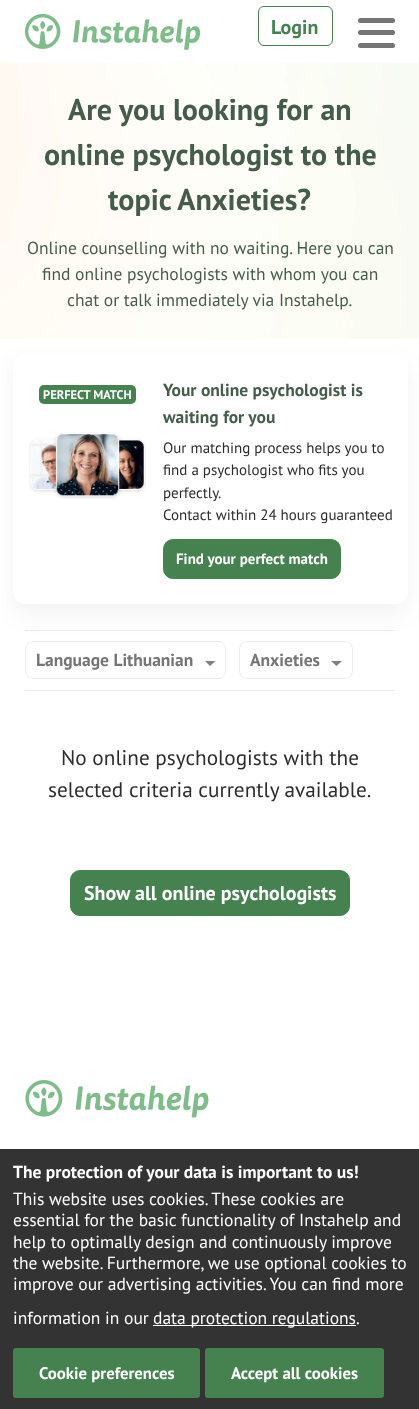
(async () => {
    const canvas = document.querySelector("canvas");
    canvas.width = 419;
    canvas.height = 1409;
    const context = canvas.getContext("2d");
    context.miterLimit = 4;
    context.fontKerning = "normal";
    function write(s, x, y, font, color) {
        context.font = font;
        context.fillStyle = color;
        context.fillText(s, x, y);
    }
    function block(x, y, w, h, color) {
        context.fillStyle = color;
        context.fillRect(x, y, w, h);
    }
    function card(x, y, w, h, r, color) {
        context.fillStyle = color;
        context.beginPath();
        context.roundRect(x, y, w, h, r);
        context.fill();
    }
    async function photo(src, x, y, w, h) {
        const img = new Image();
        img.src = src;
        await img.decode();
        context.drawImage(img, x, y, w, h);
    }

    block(0, 0, 419, 1409, "rgb(255, 255, 255)");
    await photo("media/1.png", 25, 14, 175, 36);
    context.beginPath();
    context.roundRect(258.5, 6.5, 74, 39, 5.5);
    context.strokeStyle = "rgb(69, 130, 80)";
    context.stroke();
    write("Login", 271, 34, "bold 20px PT Sans", "rgb(69, 130, 80)");
    card(358, 18, 37, 5, 2.5, "rgb(117, 117, 117)");
    card(358, 30, 37, 5, 2.5, "rgb(117, 117, 117)");
    card(358, 43, 37, 5, 2.5, "rgb(117, 117, 117)");
    await photo("media/2.png", 0, 62, 419, 277);
    write("Are you looking for an", 68, 120, "bold 30px PT Sans", "rgb(70, 92, 74)");
    write("online psychologist to the", 44, 165, "bold 30px PT Sans", "rgb(70, 92, 74)");
    write("topic Anxieties?", 108, 210, "bold 30px PT Sans", "rgb(70, 92, 74)");
    write("Online counselling with no waiting. Here you can", 27, 254, "17.5px PT Sans", "rgb(70, 92, 74)");
    write("find online psychologists with whom you can", 42, 280, "17.5px PT Sans", "rgb(70, 92, 74)");
    write("chat or talk immediately via Instahelp.", 67, 306, "17.5px PT Sans", "rgb(70, 92, 74)");
    context.fillStyle = "rgba(0, 0, 0, 0.05)";
    context.filter = "blur(12.5px)";
    context.beginPath();
    context.roundRect(13, 363, 395, 251, 13);
    context.fill();
    context.filter = "none";
    card(13, 353, 395, 251, 13, "rgb(255, 255, 255)");
    card(39, 385, 97, 19, 5, "rgb(69, 130, 80)");
    write("PERFECT MATCH", 43, 399, "bold 12.5px PT Sans", "rgb(255, 255, 255)");
    await photo("media/3.png", 29, 432, 117, 67);
    write("Your online psychologist is", 163, 396, "bold 17.5px PT Sans", "rgb(70, 92, 74)");
    write("waiting for you", 163, 423, "bold 17.5px PT Sans", "rgb(70, 92, 74)");
    write("Our matching process helps you to", 163, 453, "15px PT Sans", "rgb(44, 44, 44)");
    write("find a psychologist who fits you", 163, 475, "15px PT Sans", "rgb(44, 44, 44)");
    write("perfectly.", 163, 498, "15px PT Sans", "rgb(44, 44, 44)");
    write("Contact within 24 hours guaranteed", 163, 520, "15px PT Sans", "rgb(44, 44, 44)");
    context.fillStyle = "rgb(69, 130, 80)";
    context.beginPath();
    context.roundRect(163.5, 539.5, 177, 39, 9.5);
    context.fill();
    context.stroke();
    write("Find your perfect match", 176, 564, "bold 15px PT Sans", "rgb(255, 255, 255)");
    block(25, 630, 370, 1, "rgb(235, 237, 236)");
    block(25, 690, 370, 1, "rgb(235, 237, 236)");
    context.beginPath();
    context.roundRect(25.5, 641.5, 200, 37, 7.5);
    context.strokeStyle = "rgb(234, 237, 236)";
    context.stroke();
    write("Language Lithuanian", 36, 666, "bold 17.5px PT Sans", "rgb(117, 117, 117)");
    context.fillStyle = "rgb(128, 128, 128)";
    context.beginPath();
    context.moveTo(205, 661);
    context.lineTo(215.5, 661);
    context.lineTo(210, 666);
    context.closePath();
    context.fill("evenodd");
    context.beginPath();
    context.roundRect(239.5, 641.5, 113, 37, 7.5);
    context.stroke();
    write("Anxieties", 250, 666, "bold 17.5px PT Sans", "rgb(117, 117, 117)");
    context.fillStyle = "rgb(128, 128, 128)";
    context.beginPath();
    context.moveTo(331, 661);
    context.lineTo(342, 661);
    context.lineTo(336.5, 666);
    context.closePath();
    context.fill("evenodd");
    write("No online psychologists with the", 61, 765, "21.25px PT Sans", "rgb(44, 44, 44)");
    write("selected criteria currently available.", 48, 797, "21.25px PT Sans", "rgb(44, 44, 44)");
    context.fillStyle = "rgb(69, 130, 80)";
    context.beginPath();
    context.roundRect(70.5, 870.5, 279, 45, 9.5);
    context.fill();
    context.strokeStyle = "rgb(69, 130, 80)";
    context.stroke();
    write("Show all online psychologists", 84, 900, "bold 20px PT Sans", "rgb(255, 255, 255)");
    await photo("media/4.png", 25, 1080, 184, 38);
    block(0, 1149, 419, 260, "rgb(51, 51, 51)");
    write("The protection of your data is important to us!", 13, 1178, "bold 17.5px PT Sans", "rgb(255, 255, 255)");
    write("This website uses cookies. These cookies are", 13, 1205, "17.5px PT Sans", "rgb(255, 255, 255)");
    write("essential for the basic functionality of Instahelp and", 13, 1226, "17.5px PT Sans", "rgb(255, 255, 255)");
    write("help to optimally design and continuously improve", 13, 1248, "17.5px PT Sans", "rgb(255, 255, 255)");
    write("the website. Furthermore, we use optional cookies to", 13, 1269, "17.5px PT Sans", "rgb(255, 255, 255)");
    write("improve our advertising activities. You can find more", 13, 1290, "17.5px PT Sans", "rgb(255, 255, 255)");
    write("information in our", 13, 1324, "17.5px PT Sans", "rgb(255, 255, 255)");
    block(153, 1325, 203, 1, "rgb(255, 255, 255)");
    write("data protection regulations.", 153, 1324, "17.5px PT Sans", "rgb(255, 255, 255)");
    context.fillStyle = "rgb(69, 130, 80)";
    context.beginPath();
    context.roundRect(13.5, 1348.5, 186, 49, 2);
    context.fill();
    context.stroke();
    write("Cookie preferences", 39, 1379, "bold 16.75px PT Sans", "rgb(255, 255, 255)");
    context.fillStyle = "rgb(69, 130, 80)";
    context.beginPath();
    context.roundRect(205.5, 1348.5, 178, 49, 2);
    context.fill();
    context.stroke();
    write("Accept all cookies", 231, 1379, "bold 16.75px PT Sans", "rgb(255, 255, 255)");
})();
